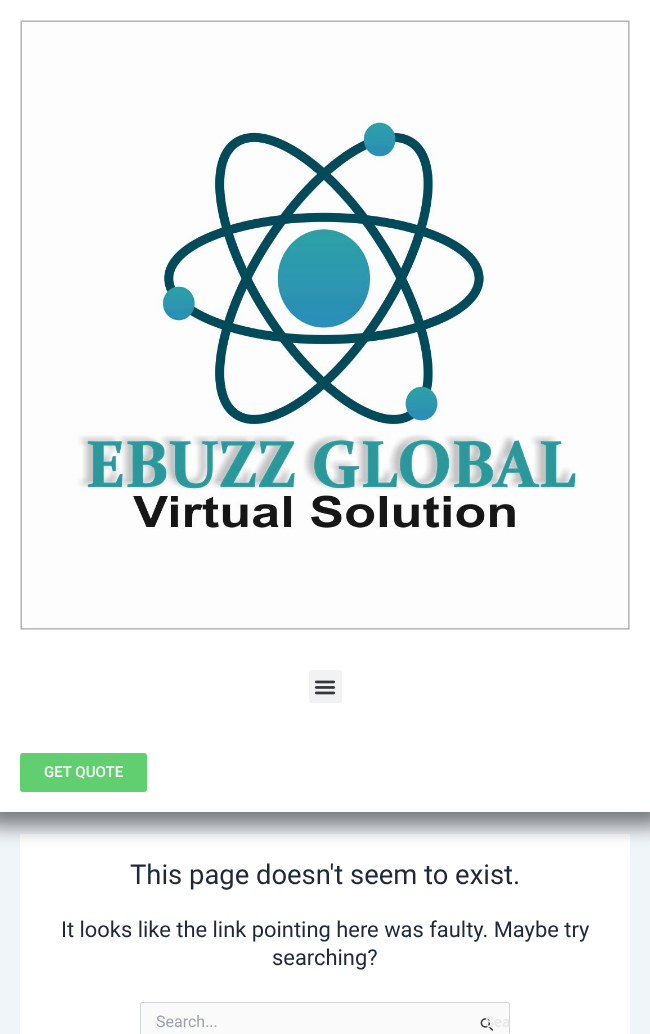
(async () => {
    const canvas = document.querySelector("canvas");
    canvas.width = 650;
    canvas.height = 1034;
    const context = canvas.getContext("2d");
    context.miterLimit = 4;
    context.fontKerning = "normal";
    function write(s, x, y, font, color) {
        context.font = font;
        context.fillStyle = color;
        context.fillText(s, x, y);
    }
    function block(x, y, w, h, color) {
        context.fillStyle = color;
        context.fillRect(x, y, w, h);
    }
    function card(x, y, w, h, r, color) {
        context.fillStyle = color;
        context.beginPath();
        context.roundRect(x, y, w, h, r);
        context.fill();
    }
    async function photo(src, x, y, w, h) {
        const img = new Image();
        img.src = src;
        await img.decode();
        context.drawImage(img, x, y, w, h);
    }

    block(0, 0, 650, 1034, "rgb(240, 245, 250)");
    block(20, 834, 610, 200, "rgb(255, 255, 255)");
    context.fillStyle = "rgba(0, 0, 0, 0.5)";
    context.filter = "blur(10px)";
    context.beginPath();
    context.rect(-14, -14, 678, 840);
    context.fill();
    context.filter = "none";
    block(0, 0, 650, 812, "rgb(255, 255, 255)");
    await photo("media/1.png", 20, 20, 610, 610);
    card(309, 670, 33, 33, 3, "rgb(242, 242, 242)");
    await photo("media/2.png", 314, 680, 22, 15);
    card(20, 753, 127, 39, 3, "rgb(97, 206, 112)");
    write("GET QUOTE", 44, 777, "500 15px Roboto", "rgb(255, 255, 255)");
    write("This page doesn't seem to exist.", 130, 884, "27.4px Roboto", "rgb(30, 41, 59)");
    write("It looks like the link pointing here was faulty. Maybe try", 61, 937, "21.9px Roboto", "rgb(30, 41, 59)");
    write("searching?", 272, 965, "21.9px Roboto", "rgb(30, 41, 59)");
    context.fillStyle = "rgb(250, 250, 250)";
    context.beginPath();
    context.roundRect(140.5, 1002.5, 369, 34, 1.5);
    context.fill();
    context.strokeStyle = "rgb(209, 213, 219)";
    context.stroke();
    write("Search...", 156, 1027, "16px Roboto", "rgb(156, 163, 175)");
    await photo("media/3.png", 480, 1018, 13, 13);
    write("Sea", 485, 1027, "500 15px Roboto", "rgb(232, 232, 232)");
})();
